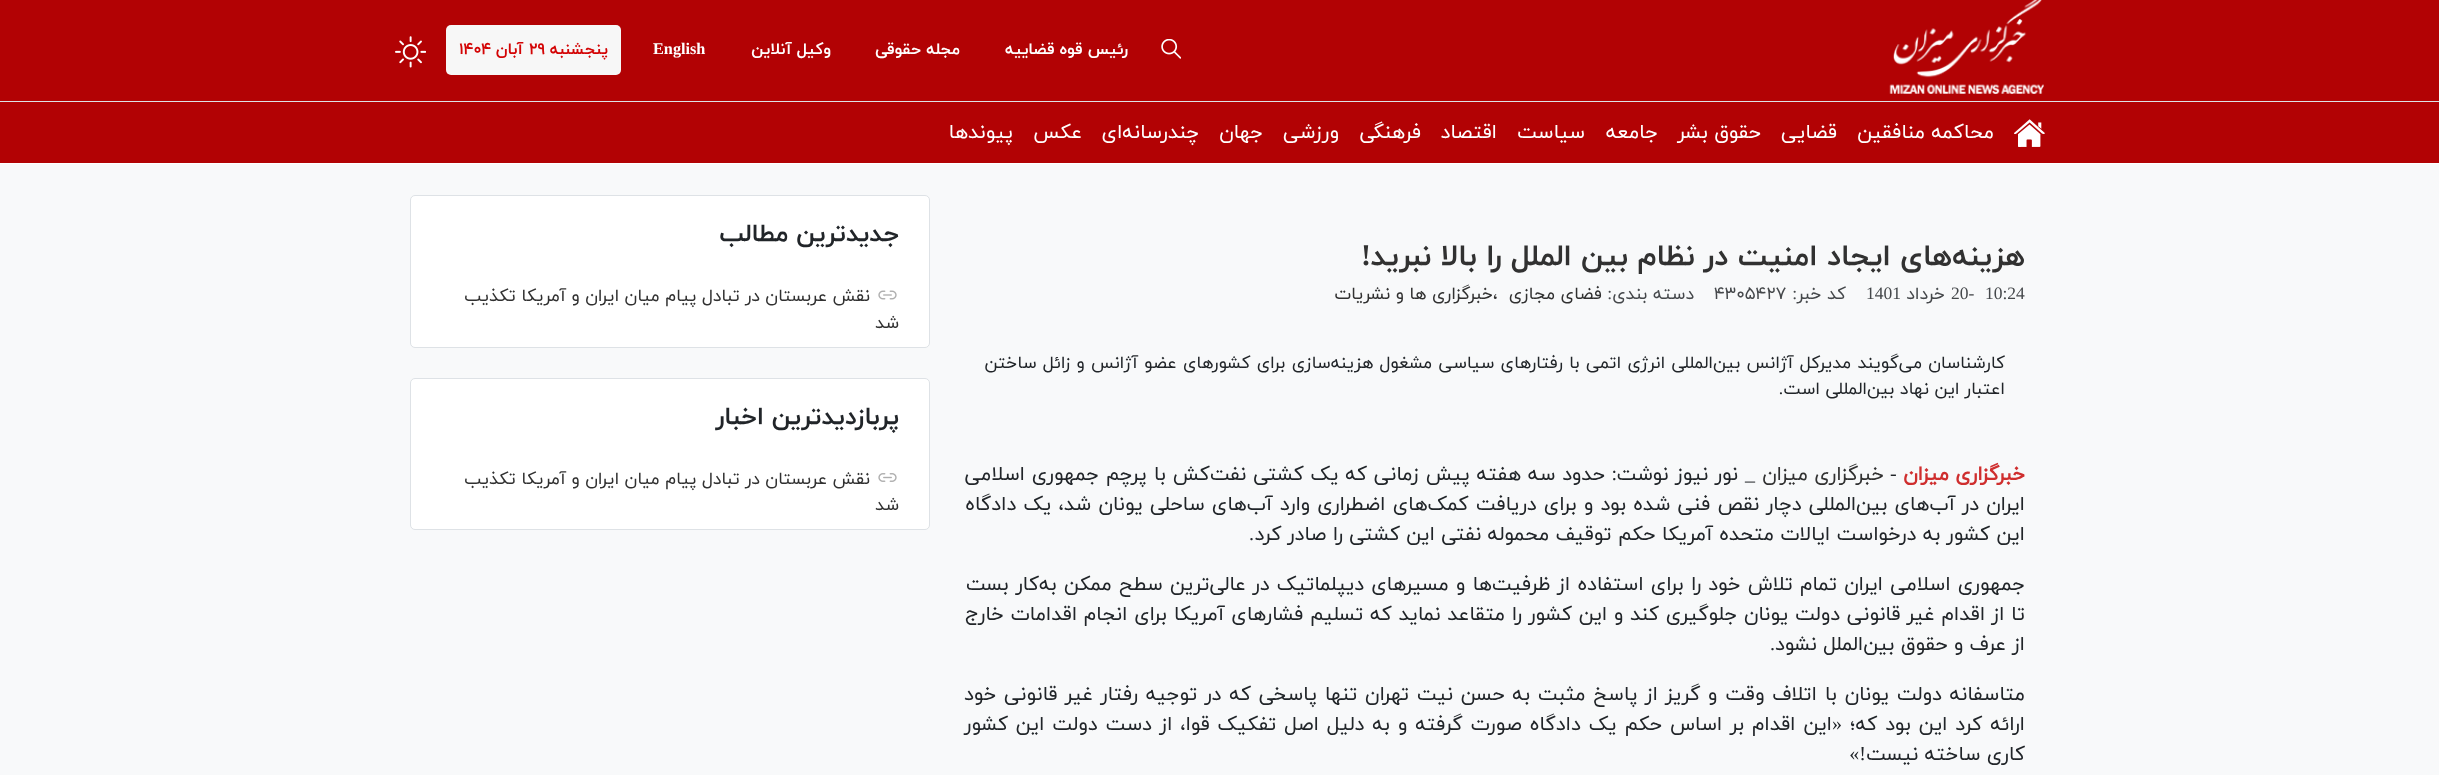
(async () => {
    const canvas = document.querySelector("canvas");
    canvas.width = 2439;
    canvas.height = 775;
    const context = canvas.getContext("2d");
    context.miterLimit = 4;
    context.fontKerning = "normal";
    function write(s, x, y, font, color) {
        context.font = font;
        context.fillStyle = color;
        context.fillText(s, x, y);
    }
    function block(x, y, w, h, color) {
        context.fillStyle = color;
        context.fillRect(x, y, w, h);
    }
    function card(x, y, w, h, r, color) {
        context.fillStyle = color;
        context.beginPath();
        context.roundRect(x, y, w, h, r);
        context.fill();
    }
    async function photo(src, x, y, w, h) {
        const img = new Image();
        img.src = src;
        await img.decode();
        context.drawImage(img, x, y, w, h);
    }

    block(0, 0, 2439, 775, "rgb(248, 249, 250)");
    block(0, 0, 2439, 163, "rgb(178, 2, 4)");
    block(0, 101, 2439, 1, "rgb(222, 226, 230)");
    await photo("media/1.png", 1889, 0, 155, 94);
    await photo("media/2.png", 1161, 39, 20, 20);
    context.direction = "rtl";
    write("رئیس قوه قضاییه", 1128, 54, "bold 16.25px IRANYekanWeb", "rgb(255, 255, 255)");
    write("مجله حقوقی", 960, 54, "bold 16.25px IRANYekanWeb", "rgb(255, 255, 255)");
    write("وکیل آنلاین", 831, 54, "bold 16.25px IRANYekanWeb", "rgb(255, 255, 255)");
    context.direction = "ltr";
    write("English", 653, 54, "bold 16.25px Liberation Serif", "rgb(255, 255, 255)");
    card(446, 25, 175, 50, 5, "rgb(247, 247, 247)");
    context.direction = "rtl";
    write("پنجشنبه", 608, 54, "bold 16.25px IRANYekanWeb", "rgb(211, 4, 5)");
    context.direction = "ltr";
    write("۲۹", 529, 54, "bold 16.25px IRANYekanWeb", "rgb(211, 4, 5)");
    context.direction = "rtl";
    write("آبان", 523, 54, "bold 16.25px IRANYekanWeb", "rgb(211, 4, 5)");
    context.direction = "ltr";
    write("۱۴۰۴", 459, 54, "bold 16.25px IRANYekanWeb", "rgb(211, 4, 5)");
    await photo("media/3.png", 395, 36, 31, 32);
    block(0, 163, 2439, 1, "rgb(255, 255, 255)");
    await photo("media/4.png", 2014, 119, 31, 28);
    context.direction = "rtl";
    write("محاکمه منافقین", 1994, 138, "20px IRANYekanWeb", "rgb(255, 255, 255)");
    write("قضایی", 1837, 138, "20px IRANYekanWeb", "rgb(255, 255, 255)");
    write("حقوق بشر", 1761, 138, "20px IRANYekanWeb", "rgb(255, 255, 255)");
    write("جامعه", 1658, 138, "20px IRANYekanWeb", "rgb(255, 255, 255)");
    write("سیاست", 1585, 138, "20px IRANYekanWeb", "rgb(255, 255, 255)");
    write("اقتصاد", 1497, 138, "20px IRANYekanWeb", "rgb(255, 255, 255)");
    write("فرهنگی", 1421, 138, "20px IRANYekanWeb", "rgb(255, 255, 255)");
    write("ورزشی", 1339, 138, "20px IRANYekanWeb", "rgb(255, 255, 255)");
    write("جهان", 1263, 138, "20px IRANYekanWeb", "rgb(255, 255, 255)");
    write("چندرسانه‌ای", 1199, 138, "20px IRANYekanWeb", "rgb(255, 255, 255)");
    write("عکس", 1082, 138, "20px IRANYekanWeb", "rgb(255, 255, 255)");
    write("پیوندها", 1013, 138, "20px IRANYekanWeb", "rgb(255, 255, 255)");
    write("هزینه‌های ایجاد امنیت در نظام بین الملل را بالا نبرید", 2025, 265, "bold 30px IRANYekanWeb", "rgb(49, 49, 49)");
    write("!", 1371, 265, "bold 30px Liberation Serif", "rgb(49, 49, 49)");
    context.direction = "ltr";
    write("10:24", 1985, 299, "17.5px Liberation Serif", "rgb(69, 72, 75)");
    write("20-", 1951, 299, "17.5px Liberation Serif", "rgb(69, 72, 75)");
    context.direction = "rtl";
    write("خرداد", 1945, 299, "17.5px IRANYekanWeb", "rgb(69, 72, 75)");
    context.direction = "ltr";
    write("1401", 1866, 299, "17.5px Liberation Serif", "rgb(69, 72, 75)");
    context.direction = "rtl";
    write("کد خبر", 1846, 299, "17.5px IRANYekanWeb", "rgb(69, 72, 75)");
    write(":", 1797, 299, "17.5px Liberation Serif", "rgb(69, 72, 75)");
    context.direction = "ltr";
    write("۴۳۰۵۴۲۷", 1714, 299, "17.5px IRANYekanWeb", "rgb(69, 72, 75)");
    context.direction = "rtl";
    write("دسته بندی", 1694, 299, "17.5px IRANYekanWeb", "rgb(69, 72, 75)");
    write(":", 1612, 299, "17.5px Liberation Serif", "rgb(69, 72, 75)");
    write("فضای مجازی", 1602, 299, "17.5px IRANYekanWeb", "rgb(49, 49, 49)");
    context.direction = "ltr";
    write("،", 1493, 299, "17.5px IRANYekanWeb", "rgb(49, 49, 49)");
    context.direction = "rtl";
    write("خبرگزاری ها و نشریات", 1493, 299, "17.5px IRANYekanWeb", "rgb(49, 49, 49)");
    context.wordSpacing = "0.7px";
    write("کارشناسان می‌گویند مدیرکل آژانس بین‌المللی انرژی اتمی با رفتارهای سیاسی مشغول هزینه‌سازی برای کشورهای عضو آژانس و زائل ساختن", 2005, 368, "17.5px IRANYekanWeb", "rgb(33, 37, 41)");
    context.wordSpacing = "0px";
    write("اعتبار این نهاد بین‌المللی است", 2005, 394, "17.5px IRANYekanWeb", "rgb(33, 37, 41)");
    write(".", 1783, 394, "17.5px Liberation Serif", "rgb(33, 37, 41)");
    write("خبرگزاری میزان", 1884, 480, "20px IRANYekanWeb", "rgb(49, 49, 49)");
    context.wordSpacing = "0.5px";
    write("نور نیوز نوشت", 1738, 480, "20px IRANYekanWeb", "rgb(33, 37, 41)");
    context.wordSpacing = "0px";
    write(":", 1617, 480, "20px Liberation Serif", "rgb(33, 37, 41)");
    context.wordSpacing = "0.5px";
    write("حدود سه هفته پیش زمانی که یک کشتی نفت‌کش با پرچم جمهوری اسلامی", 1605, 480, "20px IRANYekanWeb", "rgb(33, 37, 41)");
    context.wordSpacing = "0px";
    write("_", 1755, 480, "20px Liberation Serif", "rgb(33, 37, 41)");
    context.wordSpacing = "0.9px";
    write("ایران در آب‌های بین‌المللی دچار نقص فنی شده بود و برای دریافت کمک‌های اضطراری وارد آب‌های ساحلی یونان شد، یک دادگاه", 2025, 510, "20px IRANYekanWeb", "rgb(33, 37, 41)");
    context.wordSpacing = "0px";
    write("این کشور به درخواست ایالات متحده آمریکا حکم توقیف محموله نفتی این کشتی را صادر کرد", 2025, 540, "20px IRANYekanWeb", "rgb(33, 37, 41)");
    write(".", 1254, 540, "20px Liberation Serif", "rgb(33, 37, 41)");
    write("خبرگزاری میزان", 2025, 480, "bold 20px 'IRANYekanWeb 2'", "rgb(207, 46, 46)");
    context.direction = "ltr";
    write("-", 1890, 480, "20px Liberation Serif", "rgb(33, 37, 41)");
    context.wordSpacing = "0.9px";
    context.direction = "rtl";
    write("جمهوری اسلامی ایران تمام تلاش خود را برای استفاده از ظرفیت‌ها و مسیرهای دیپلماتیک در عالی‌ترین سطح ممکن به‌کار بست", 2025, 590, "20px IRANYekanWeb", "rgb(33, 37, 41)");
    context.wordSpacing = "0.35px";
    write("تا از اقدام غیر قانونی دولت یونان جلوگیری کند و این کشور را متقاعد نماید که تسلیم فشارهای آمریکا برای انجام اقدامات خارج", 2025, 620, "20px IRANYekanWeb", "rgb(33, 37, 41)");
    context.wordSpacing = "0px";
    write("از عرف و حقوق بین‌الملل نشود", 2025, 650, "20px IRANYekanWeb", "rgb(33, 37, 41)");
    write(".", 1775, 650, "20px Liberation Serif", "rgb(33, 37, 41)");
    context.wordSpacing = "1.4px";
    write("متاسفانه دولت یونان با اتلاف وقت و گریز از پاسخ مثبت به حسن نیت تهران تنها پاسخی که در توجیه رفتار غیر قانونی خود", 2025, 700, "20px IRANYekanWeb", "rgb(33, 37, 41)");
    context.wordSpacing = "1.6px";
    write("ارائه کرد این بود که؛", 2025, 730, "20px IRANYekanWeb", "rgb(33, 37, 41)");
    context.wordSpacing = "0px";
    write("«", 1842, 730, "20px Liberation Serif", "rgb(33, 37, 41)");
    context.wordSpacing = "1.6px";
    write("این اقدام بر اساس حکم یک دادگاه صورت گرفته و به دلیل اصل تفکیک قوا، از دست دولت این کشور", 1832, 730, "20px IRANYekanWeb", "rgb(33, 37, 41)");
    context.wordSpacing = "0px";
    write("کاری ساخته نیست", 2025, 760, "20px IRANYekanWeb", "rgb(33, 37, 41)");
    write("!»", 1866, 760, "20px Liberation Serif", "rgb(33, 37, 41)");
    context.fillStyle = "rgb(255, 255, 255)";
    context.beginPath();
    context.roundRect(410.5, 195.5, 519, 152, 4.5);
    context.fill();
    context.strokeStyle = "rgb(222, 226, 230)";
    context.stroke();
    write("جدیدترین مطالب", 899, 241, "bold 25px IRANYekanWeb", "rgb(33, 37, 41)");
    await photo("media/5.png", 878, 290, 19, 10);
    write("نقش عربستان در تبادل پیام میان ایران و آمریکا تکذیب", 870, 301, "17.5px IRANYekanWeb", "rgb(49, 49, 49)");
    write("شد", 899, 328, "17.5px IRANYekanWeb", "rgb(49, 49, 49)");
    context.fillStyle = "rgb(255, 255, 255)";
    context.beginPath();
    context.roundRect(410.5, 378.5, 519, 151, 4.5);
    context.fill();
    context.stroke();
    write("پربازدیدترین اخبار", 899, 424, "bold 25px IRANYekanWeb", "rgb(33, 37, 41)");
    await photo("media/6.png", 878, 473, 19, 9);
    write("نقش عربستان در تبادل پیام میان ایران و آمریکا تکذیب", 870, 484, "17.5px IRANYekanWeb", "rgb(49, 49, 49)");
    write("شد", 899, 510, "17.5px IRANYekanWeb", "rgb(49, 49, 49)");
})();
